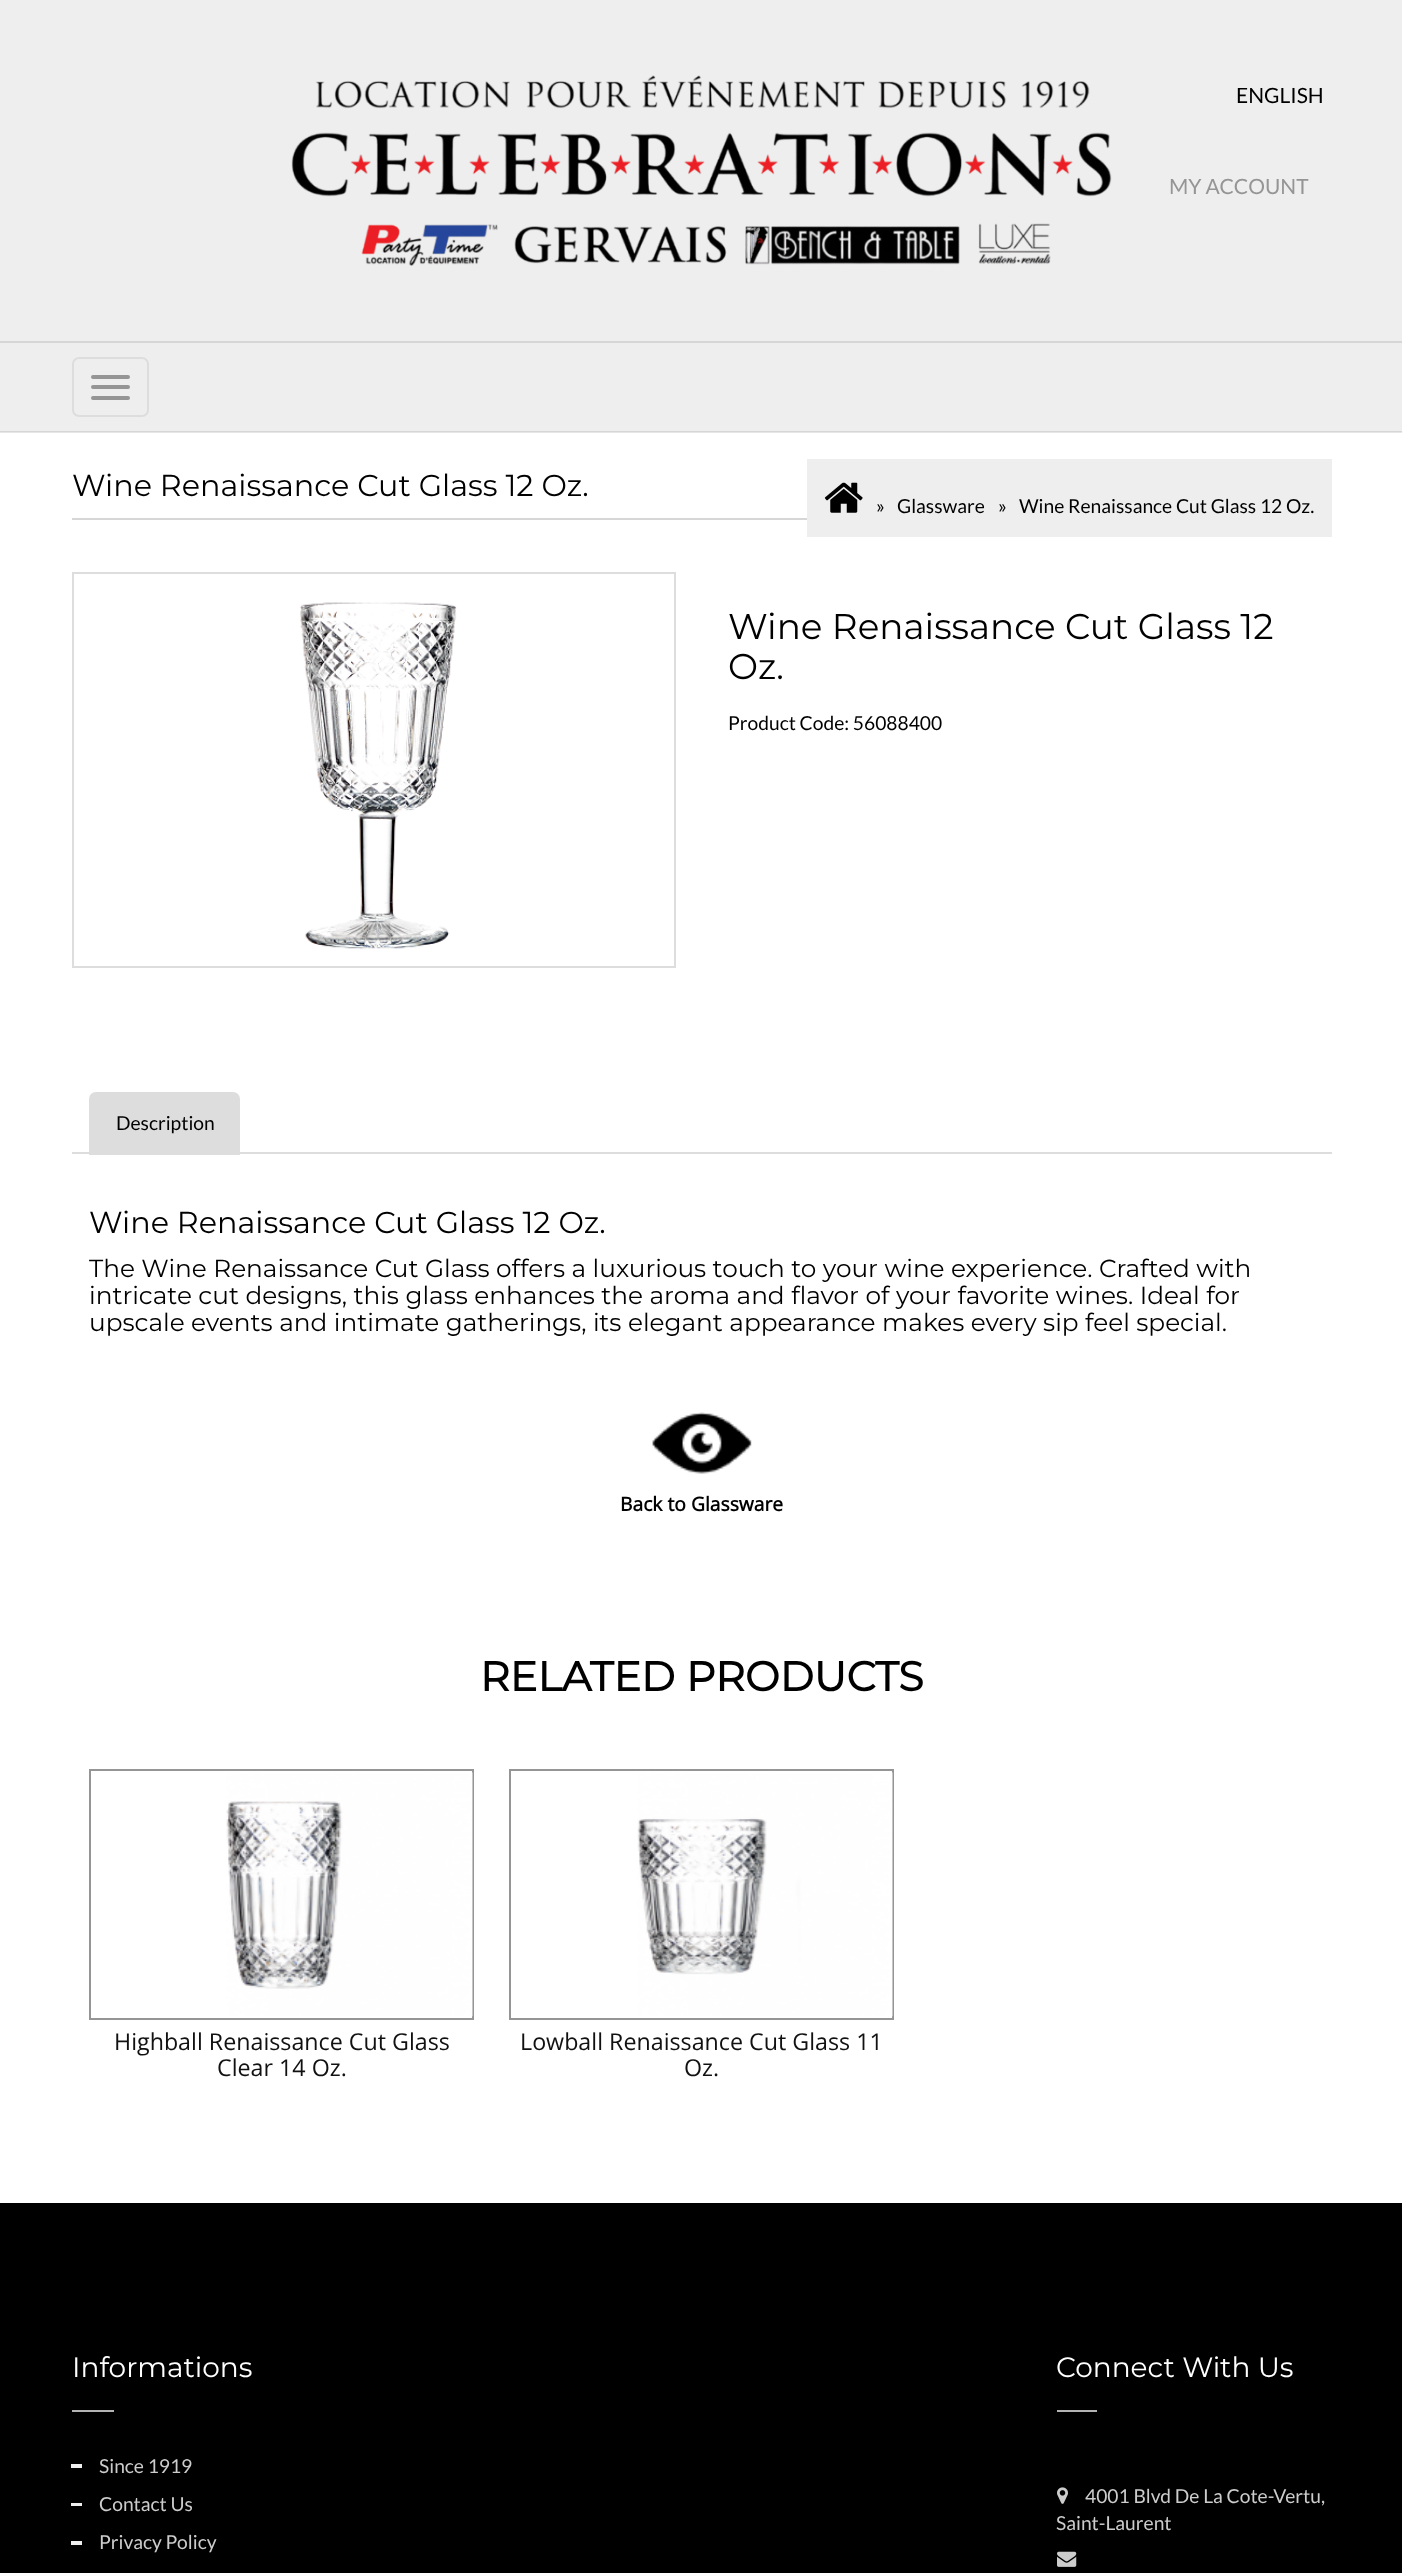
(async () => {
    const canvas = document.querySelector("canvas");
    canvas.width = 1402;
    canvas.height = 2573;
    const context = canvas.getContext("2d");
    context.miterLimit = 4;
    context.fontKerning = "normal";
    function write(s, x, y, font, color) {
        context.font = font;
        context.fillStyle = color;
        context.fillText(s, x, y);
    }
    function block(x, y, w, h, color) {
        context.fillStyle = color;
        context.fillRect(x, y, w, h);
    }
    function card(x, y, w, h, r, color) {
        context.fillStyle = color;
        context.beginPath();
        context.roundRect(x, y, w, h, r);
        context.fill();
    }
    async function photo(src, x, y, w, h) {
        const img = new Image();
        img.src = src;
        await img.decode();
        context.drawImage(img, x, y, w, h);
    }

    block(0, 0, 1402, 2573, "rgb(255, 255, 255)");
    block(0, 432, 1402, 1, "rgb(230, 230, 230)");
    block(0, 0, 1402, 431, "rgb(239, 238, 238)");
    block(0, 431, 1402, 1, "rgb(215, 214, 214)");
    await photo("media/1.png", 291, 75, 821, 191);
    write("ENGLISH", 1236, 103, "21px Lato", "rgb(0, 0, 0)");
    write("MY ACCOUNT", 1169, 194, "21px Lato", "rgb(149, 149, 149)");
    block(0, 341, 1402, 2, "rgb(215, 214, 214)");
    context.beginPath();
    context.roundRect(73, 358, 75, 58, 6);
    context.strokeStyle = "rgb(221, 221, 221)";
    context.lineWidth = 2;
    context.stroke();
    card(91, 375, 39, 4, 2, "rgb(149, 149, 149)");
    card(91, 385, 39, 4, 2, "rgb(149, 149, 149)");
    card(91, 396, 39, 4, 2, "rgb(149, 149, 149)");
    block(72, 518, 735, 2, "rgb(214, 214, 214)");
    write("Wine Renaissance Cut Glass 12 Oz.", 72, 496, "100 30.25px Montserrat", "rgb(0, 0, 0)");
    block(807, 459, 525, 78, "rgb(239, 238, 238)");
    await photo("media/2.png", 824, 482, 39, 31);
    write("»", 876, 513, "19.25px Lato", "rgb(0, 0, 0)");
    write("Glassware", 897, 513, "19.25px Lato", "rgb(0, 0, 0)");
    write("»", 998, 513, "19.25px Lato", "rgb(0, 0, 0)");
    write("Wine Renaissance Cut Glass 12 Oz.", 1019, 513, "19.25px Lato", "rgb(0, 0, 0)");
    context.strokeRect(73, 573, 602, 394);
    await photo("media/3.png", 300, 602, 157, 348);
    write("Wine Renaissance Cut Glass 12", 728, 639, "100 35.75px Montserrat", "rgb(0, 0, 0)");
    write("Oz.", 728, 679, "100 35.75px Montserrat", "rgb(0, 0, 0)");
    write("Product Code: 56088400", 728, 730, "19.25px Lato", "rgb(0, 0, 0)");
    block(72, 1152, 1260, 2, "rgb(221, 221, 221)");
    context.beginPath();
    context.roundRect(89, 1092, 151, 63, [7, 7, 0, 0]);
    context.fill();
    write("Description", 116, 1130, "19.25px Lato", "rgb(0, 0, 0)");
    write("Wine Renaissance Cut Glass 12 Oz.", 89, 1233, "100 30.25px Montserrat", "rgb(0, 0, 0)");
    write("The Wine Renaissance Cut Glass offers a luxurious touch to your wine experience. Crafted with", 89, 1277, "100 24.75px Montserrat", "rgb(0, 0, 0)");
    write("intricate cut designs, this glass enhances the aroma and flavor of your favorite wines. Ideal for", 89, 1304, "100 24.75px Montserrat", "rgb(0, 0, 0)");
    write("upscale events and intimate gatherings, its elegant appearance makes every sip feel special.", 89, 1331, "100 24.75px Montserrat", "rgb(0, 0, 0)");
    await photo("media/4.png", 652, 1412, 100, 62);
    write("Back to Glassware", 620, 1511, "bold 19.25px Open Sans", "rgb(0, 0, 0)");
    write("RELATED PRODUCTS", 480, 1691, "bold 41.25px Montserrat", "rgb(0, 0, 0)");
    context.strokeStyle = "rgb(149, 149, 149)";
    context.strokeRect(90, 1770, 383, 249);
    await photo("media/5.png", 226, 1772, 247, 245);
    write("Highball Renaissance Cut Glass", 114, 2050, "23.25px Open Sans", "rgb(17, 17, 17)");
    write("Clear 14 Oz.", 217, 2076, "23.25px Open Sans", "rgb(17, 17, 17)");
    context.strokeRect(510, 1770, 383, 249);
    await photo("media/6.png", 637, 1772, 256, 245);
    write("Lowball Renaissance Cut Glass 11", 520, 2050, "23.25px Open Sans", "rgb(17, 17, 17)");
    write("Oz.", 684, 2076, "23.25px Open Sans", "rgb(17, 17, 17)");
    block(0, 2203, 1402, 370, "rgb(0, 0, 0)");
    write("Informations", 72, 2377, "100 28px Montserrat", "rgb(255, 255, 255)");
    block(72, 2410, 42, 2, "rgb(179, 179, 179)");
    write("Since 1919", 99, 2473, "19.25px Lato", "rgb(204, 204, 204)");
    block(71, 2464, 11, 4, "rgb(239, 238, 238)");
    write("Contact Us", 99, 2511, "19.25px Lato", "rgb(204, 204, 204)");
    block(71, 2503, 11, 3, "rgb(239, 238, 238)");
    write("Privacy Policy", 99, 2549, "19.25px Lato", "rgb(204, 204, 204)");
    block(71, 2541, 11, 4, "rgb(239, 238, 238)");
    write("Connect With Us", 1056, 2377, "100 28px Montserrat", "rgb(255, 255, 255)");
    block(1057, 2410, 40, 2, "rgb(179, 179, 179)");
    await photo("media/7.png", 1057, 2487, 11, 17);
    write("4001 Blvd De La Cote-Vertu,", 1085, 2503, "19.25px Lato", "rgb(204, 204, 204)");
    write("Saint-Laurent", 1056, 2530, "19.25px Lato", "rgb(204, 204, 204)");
    await photo("media/8.png", 1057, 2551, 20, 16);
})();
